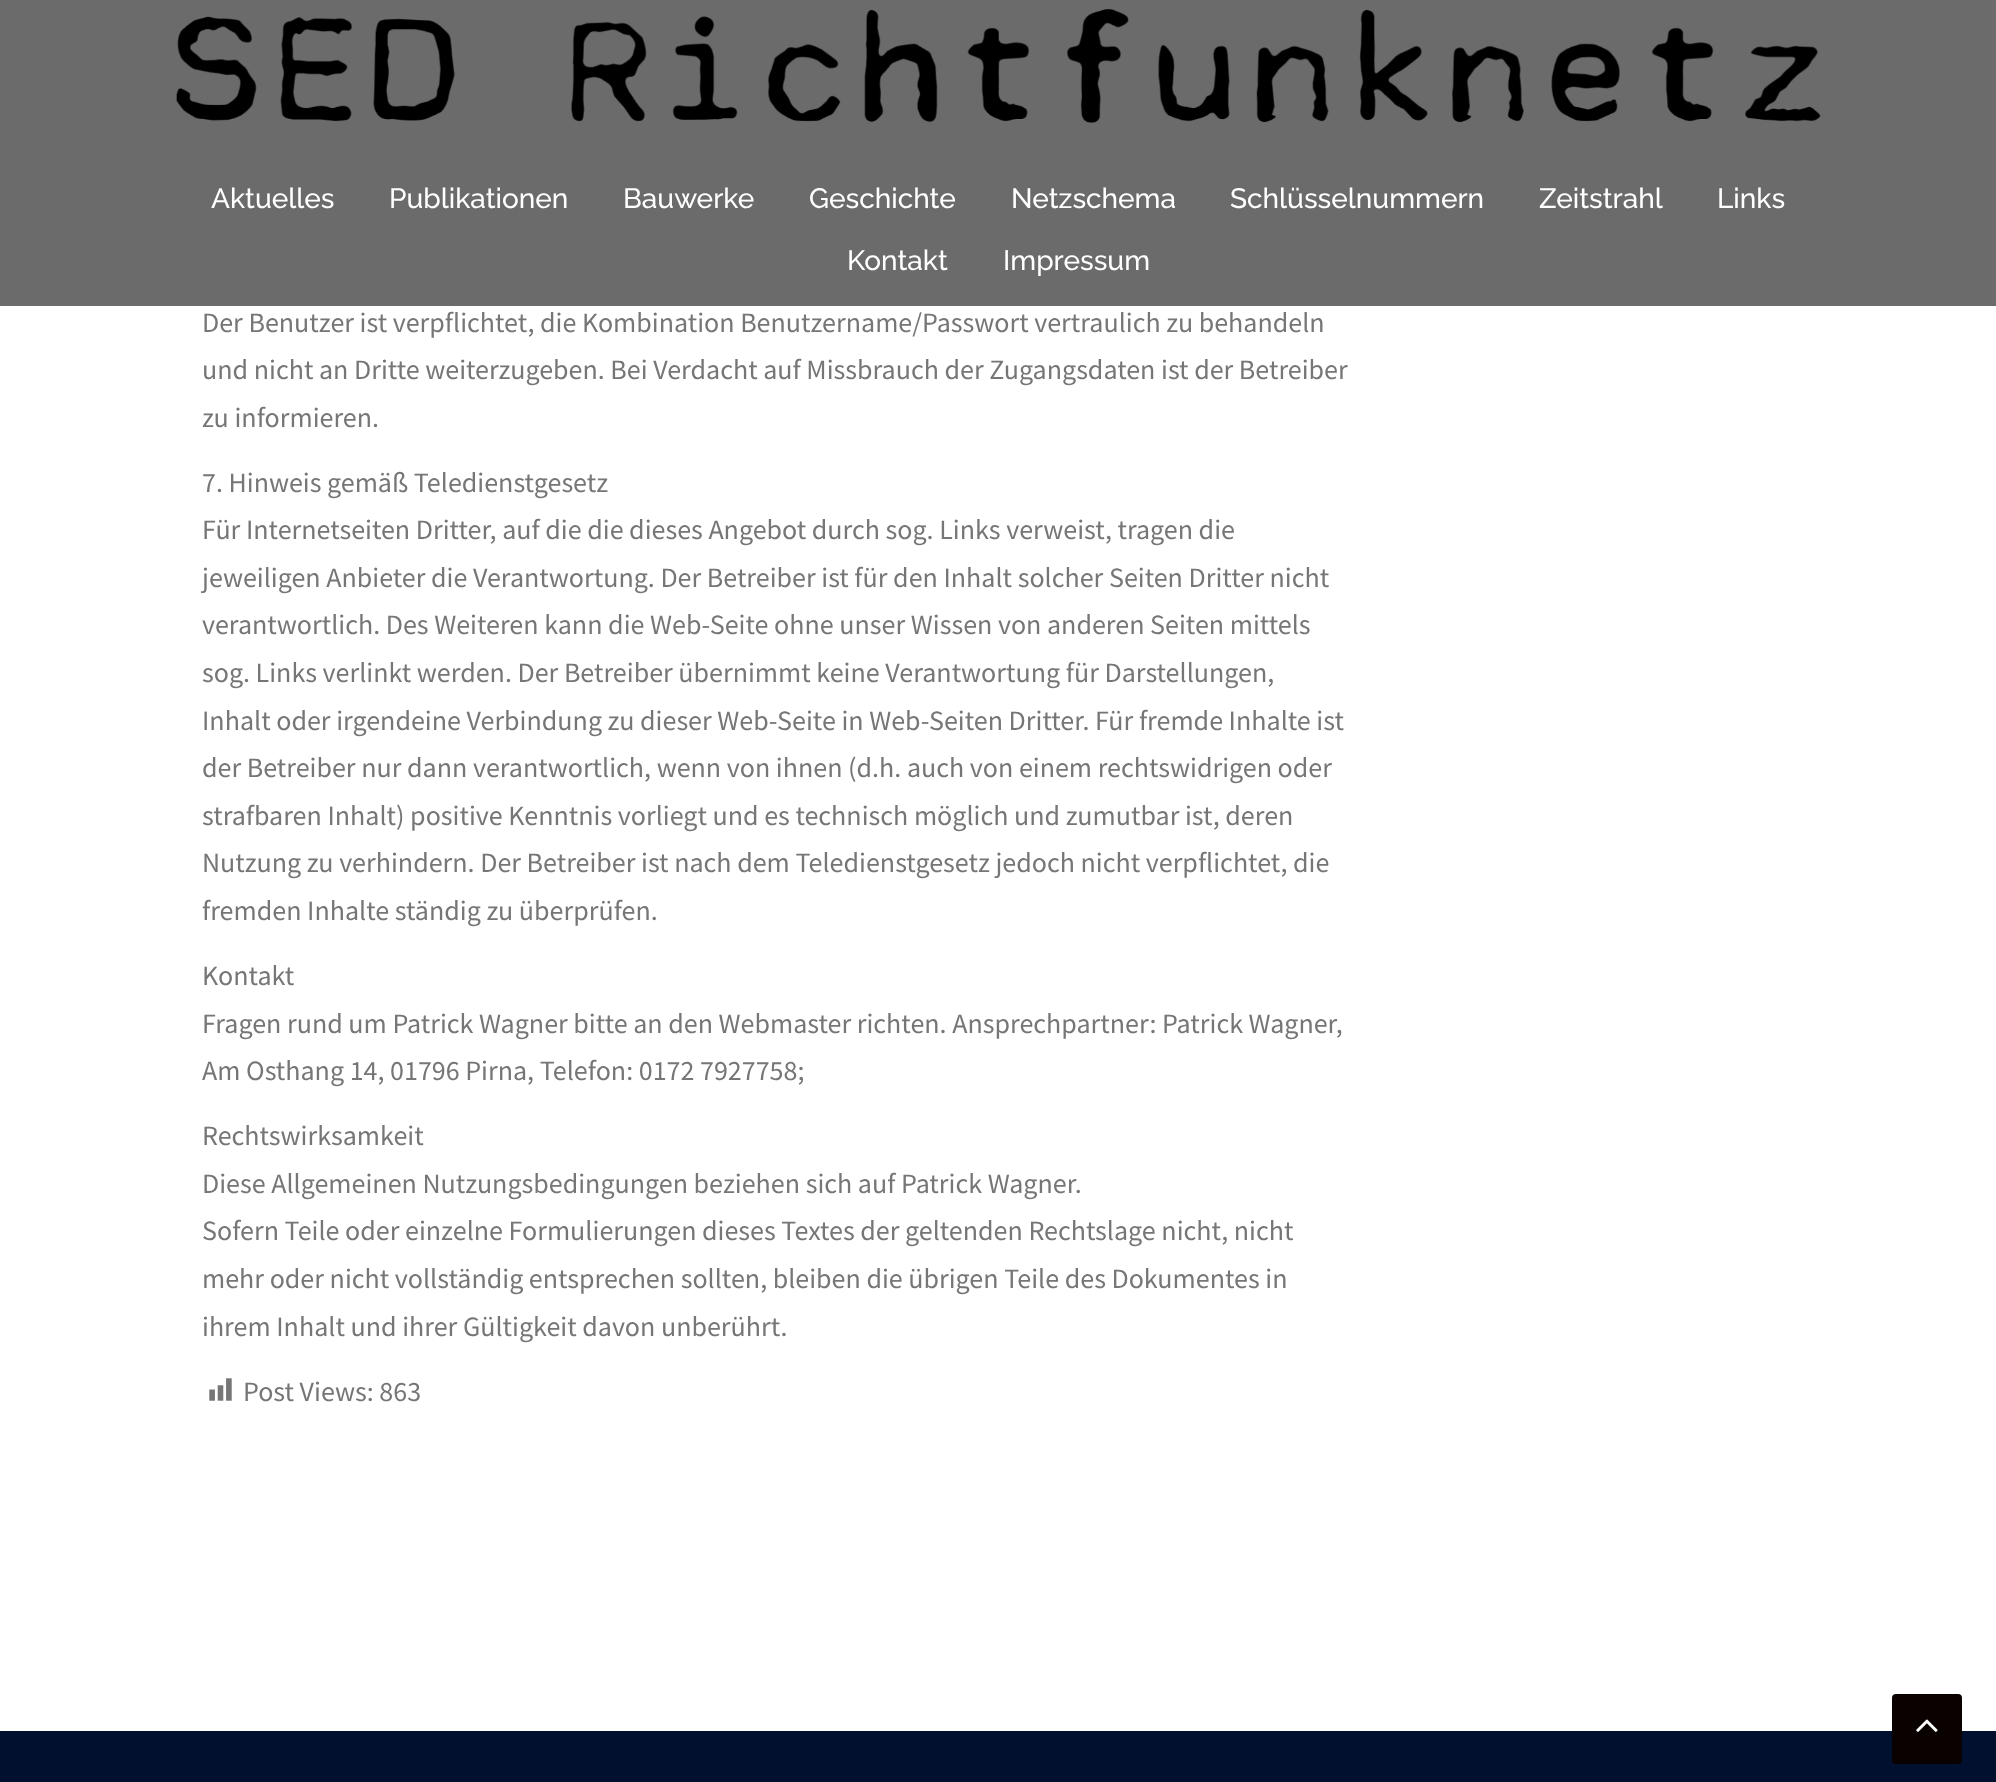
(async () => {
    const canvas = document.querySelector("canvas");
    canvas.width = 1996;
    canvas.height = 1782;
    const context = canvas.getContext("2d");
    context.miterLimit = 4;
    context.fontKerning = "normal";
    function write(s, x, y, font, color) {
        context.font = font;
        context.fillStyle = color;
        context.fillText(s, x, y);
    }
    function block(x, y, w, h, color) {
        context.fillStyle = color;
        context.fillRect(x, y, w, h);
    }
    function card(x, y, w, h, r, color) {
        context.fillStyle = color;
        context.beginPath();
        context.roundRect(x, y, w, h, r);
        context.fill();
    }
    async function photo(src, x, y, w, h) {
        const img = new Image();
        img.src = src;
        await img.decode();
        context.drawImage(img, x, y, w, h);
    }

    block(0, 0, 1996, 1782, "rgb(255, 255, 255)");
    block(0, 0, 1996, 306, "rgb(107, 107, 107)");
    await photo("media/1.png", 176, 9, 1645, 114);
    write("Aktuelles", 211, 208, "500 28px Raleway", "rgb(255, 255, 255)");
    write("Publikationen", 389, 208, "500 28px Raleway", "rgb(255, 255, 255)");
    write("Bauwerke", 623, 208, "500 28px Raleway", "rgb(255, 255, 255)");
    write("Geschichte", 809, 208, "500 28px Raleway", "rgb(255, 255, 255)");
    write("Netzschema", 1011, 208, "500 28px Raleway", "rgb(255, 255, 255)");
    write("Schlüsselnummern", 1230, 208, "500 28px Raleway", "rgb(255, 255, 255)");
    write("Zeitstrahl", 1539, 208, "500 28px Raleway", "rgb(255, 255, 255)");
    write("Links", 1717, 208, "500 28px Raleway", "rgb(255, 255, 255)");
    write("Kontakt", 847, 270, "500 28px Raleway", "rgb(255, 255, 255)");
    write("Impressum", 1003, 270, "500 28px Raleway", "rgb(255, 255, 255)");
    write("Der Benutzer ist verpflichtet, die Kombination Benutzername/Passwort vertraulich zu behandeln", 202, 332, "28px Source Sans Pro", "rgb(118, 118, 118)");
    write("und nicht an Dritte weiterzugeben. Bei Verdacht auf Missbrauch der Zugangsdaten ist der Betreiber", 202, 379, "28px Source Sans Pro", "rgb(118, 118, 118)");
    write("zu informieren.", 202, 427, "28px Source Sans Pro", "rgb(118, 118, 118)");
    write("7. Hinweis gemäß Teledienstgesetz", 202, 492, "28px Source Sans Pro", "rgb(118, 118, 118)");
    write("Für Internetseiten Dritter, auf die die dieses Angebot durch sog. Links verweist, tragen die", 202, 539, "28px Source Sans Pro", "rgb(118, 118, 118)");
    write("jeweiligen Anbieter die Verantwortung. Der Betreiber ist für den Inhalt solcher Seiten Dritter nicht", 202, 587, "28px Source Sans Pro", "rgb(118, 118, 118)");
    write("verantwortlich. Des Weiteren kann die Web-Seite ohne unser Wissen von anderen Seiten mittels", 202, 634, "28px Source Sans Pro", "rgb(118, 118, 118)");
    write("sog. Links verlinkt werden. Der Betreiber übernimmt keine Verantwortung für Darstellungen,", 202, 682, "28px Source Sans Pro", "rgb(118, 118, 118)");
    write("Inhalt oder irgendeine Verbindung zu dieser Web-Seite in Web-Seiten Dritter. Für fremde Inhalte ist", 202, 730, "28px Source Sans Pro", "rgb(118, 118, 118)");
    write("der Betreiber nur dann verantwortlich, wenn von ihnen (d.h. auch von einem rechtswidrigen oder", 202, 777, "28px Source Sans Pro", "rgb(118, 118, 118)");
    write("strafbaren Inhalt) positive Kenntnis vorliegt und es technisch möglich und zumutbar ist, deren", 202, 825, "28px Source Sans Pro", "rgb(118, 118, 118)");
    write("Nutzung zu verhindern. Der Betreiber ist nach dem Teledienstgesetz jedoch nicht verpflichtet, die", 202, 872, "28px Source Sans Pro", "rgb(118, 118, 118)");
    write("fremden Inhalte ständig zu überprüfen.", 202, 920, "28px Source Sans Pro", "rgb(118, 118, 118)");
    write("Kontakt", 202, 985, "28px Source Sans Pro", "rgb(118, 118, 118)");
    write("Fragen rund um Patrick Wagner bitte an den Webmaster richten. Ansprechpartner: Patrick Wagner,", 202, 1033, "28px Source Sans Pro", "rgb(118, 118, 118)");
    write("Am Osthang 14, 01796 Pirna, Telefon: 0172 7927758;", 202, 1080, "28px Source Sans Pro", "rgb(118, 118, 118)");
    write("Rechtswirksamkeit", 202, 1145, "28px Source Sans Pro", "rgb(118, 118, 118)");
    write("Diese Allgemeinen Nutzungsbedingungen beziehen sich auf Patrick Wagner.", 202, 1193, "28px Source Sans Pro", "rgb(118, 118, 118)");
    write("Sofern Teile oder einzelne Formulierungen dieses Textes der geltenden Rechtslage nicht, nicht", 202, 1240, "28px Source Sans Pro", "rgb(118, 118, 118)");
    write("mehr oder nicht vollständig entsprechen sollten, bleiben die übrigen Teile des Dokumentes in", 202, 1288, "28px Source Sans Pro", "rgb(118, 118, 118)");
    write("ihrem Inhalt und ihrer Gültigkeit davon unberührt.", 202, 1336, "28px Source Sans Pro", "rgb(118, 118, 118)");
    await photo("media/2.png", 209, 1378, 23, 23);
    write("Post Views: 863", 243, 1401, "28px Source Sans Pro", "rgb(118, 118, 118)");
    block(0, 1731, 1996, 51, "rgb(0, 16, 46)");
    card(1892, 1694, 70, 70, 4, "rgb(10, 1, 1)");
    await photo("media/3.png", 1916, 1719, 22, 13);
})();
